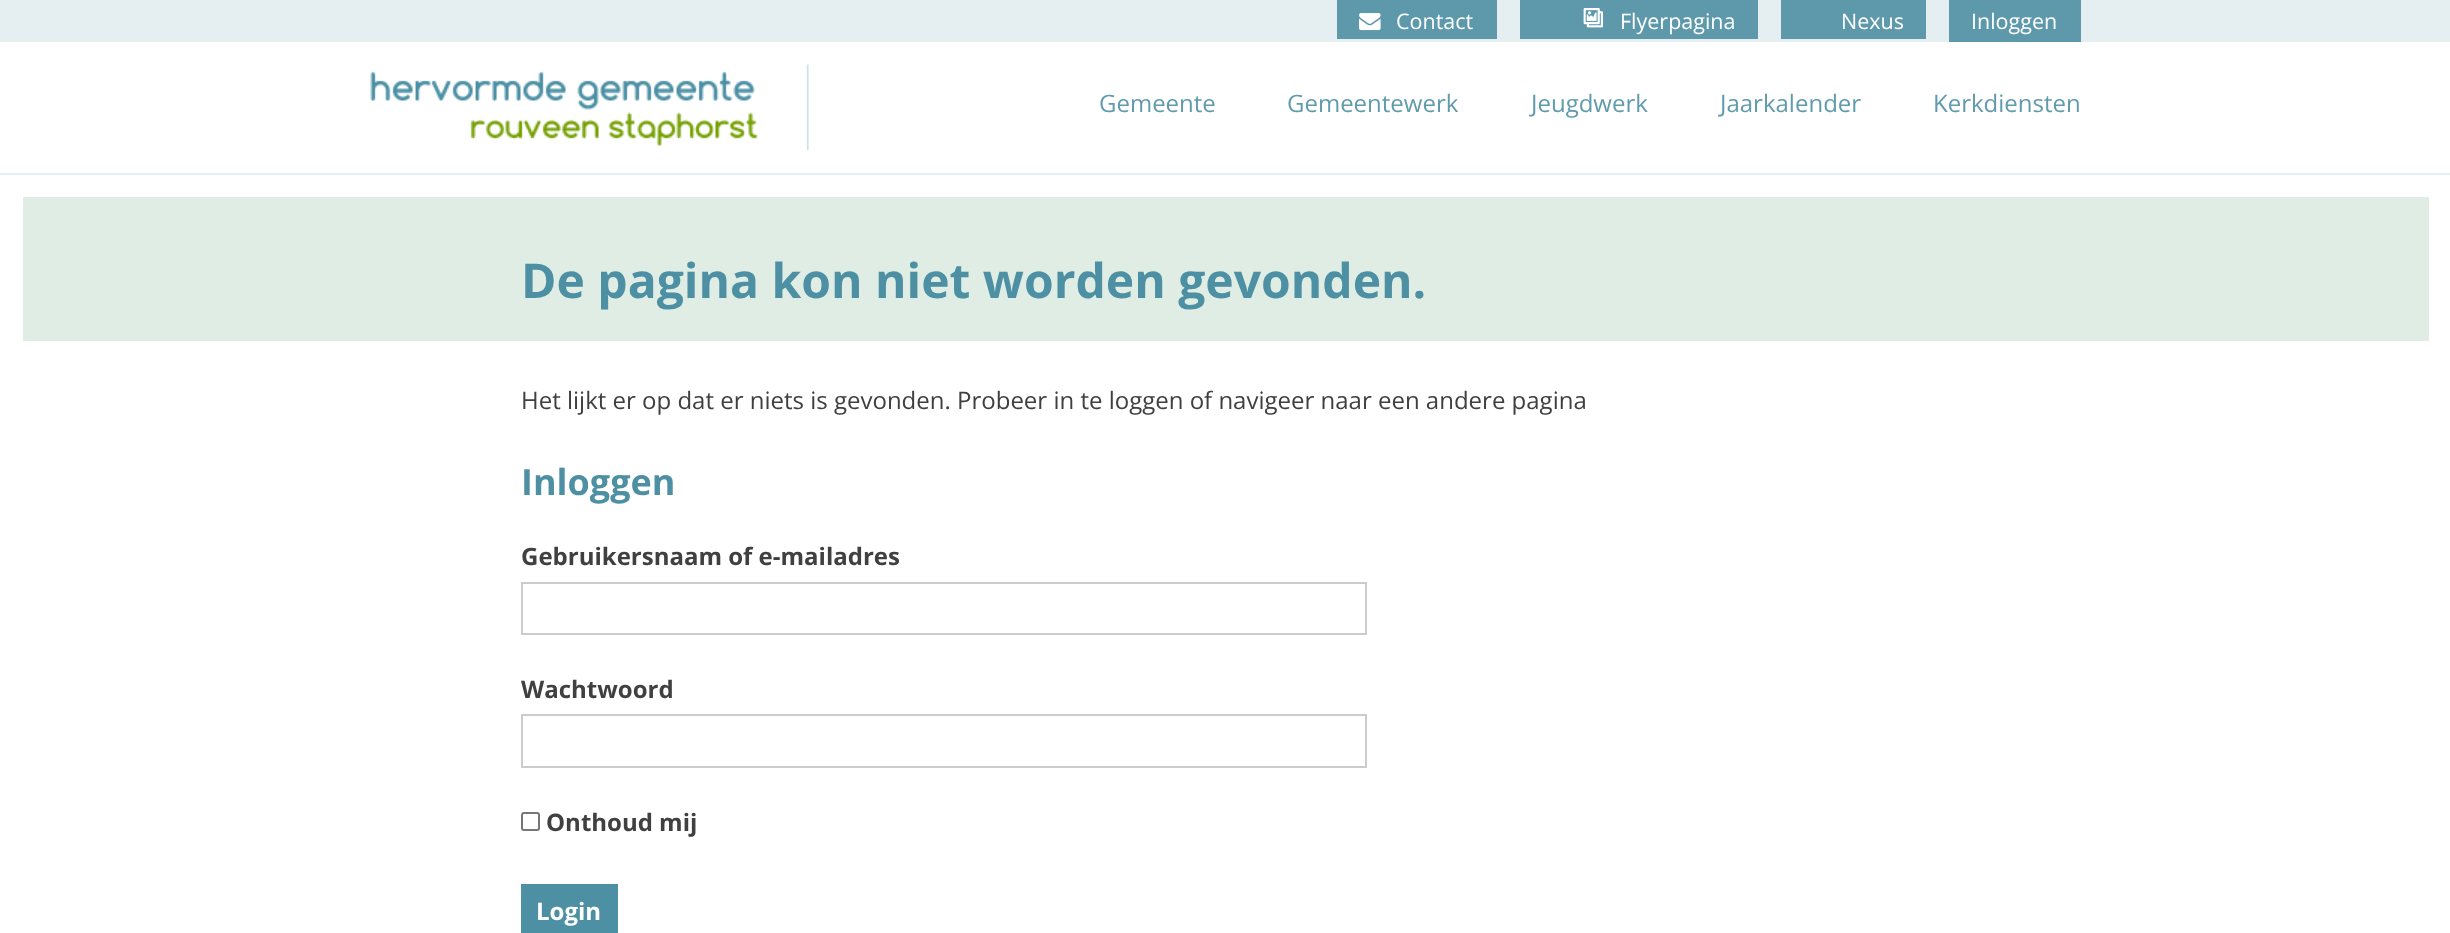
(async () => {
    const canvas = document.querySelector("canvas");
    canvas.width = 2450;
    canvas.height = 933;
    const context = canvas.getContext("2d");
    context.miterLimit = 4;
    context.fontKerning = "normal";
    function write(s, x, y, font, color) {
        context.font = font;
        context.fillStyle = color;
        context.fillText(s, x, y);
    }
    function block(x, y, w, h, color) {
        context.fillStyle = color;
        context.fillRect(x, y, w, h);
    }
    async function photo(src, x, y, w, h) {
        const img = new Image();
        img.src = src;
        await img.decode();
        context.drawImage(img, x, y, w, h);
    }

    block(0, 0, 2450, 933, "rgb(255, 255, 255)");
    block(0, 0, 2450, 42, "rgb(229, 238, 241)");
    block(1337, 0, 160, 39, "rgb(93, 153, 171)");
    await photo("media/1.png", 1359, 13, 22, 18);
    write("Contact", 1396, 29, "21.5px Open Sans", "rgb(255, 255, 255)");
    block(1520, 0, 238, 39, "rgb(93, 153, 171)");
    await photo("media/2.png", 1583, 8, 20, 20);
    write("Flyerpagina", 1620, 29, "21.5px Open Sans", "rgb(255, 255, 255)");
    block(1781, 0, 145, 39, "rgb(93, 153, 171)");
    write("Nexus", 1841, 29, "21.5px Open Sans", "rgb(255, 255, 255)");
    block(1949, 0, 132, 42, "rgb(93, 153, 171)");
    write("Inloggen", 1971, 29, "21.5px Open Sans", "rgb(255, 255, 255)");
    block(0, 173, 2450, 2, "rgb(229, 238, 241)");
    await photo("media/3.png", 370, 64, 439, 86);
    write("Gemeente", 1099, 112, "24px Open Sans", "rgb(96, 155, 172)");
    write("Gemeentewerk", 1287, 112, "24px Open Sans", "rgb(96, 155, 172)");
    write("Jeugdwerk", 1531, 112, "24px Open Sans", "rgb(96, 155, 172)");
    write("Jaarkalender", 1720, 112, "24px Open Sans", "rgb(96, 155, 172)");
    write("Kerkdiensten", 1933, 112, "24px Open Sans", "rgb(96, 155, 172)");
    block(23, 197, 2406, 144, "rgb(223, 237, 229)");
    write("De pagina kon niet worden gevonden.", 521, 298, "bold 48px Open Sans", "rgb(78, 144, 163)");
    write("Het lijkt er op dat er niets is gevonden. Probeer in te loggen of navigeer naar een andere pagina", 521, 409, "24px Open Sans", "rgb(64, 64, 64)");
    write("Inloggen", 521, 495, "bold 36px Open Sans", "rgb(78, 144, 163)");
    write("Gebruikersnaam of e-mailadres", 521, 565, "bold 24px Open Sans", "rgb(64, 64, 64)");
    context.strokeStyle = "rgb(204, 204, 204)";
    context.lineWidth = 2;
    context.strokeRect(522, 583, 844, 51);
    write("Wachtwoord", 521, 698, "bold 24px Open Sans", "rgb(64, 64, 64)");
    context.strokeRect(522, 715, 844, 52);
    context.beginPath();
    context.roundRect(522, 813, 17, 17, 2);
    context.strokeStyle = "rgb(118, 118, 118)";
    context.stroke();
    write("Onthoud mij", 546, 831, "bold 24px Open Sans", "rgb(64, 64, 64)");
    block(521, 884, 97, 49, "rgb(78, 144, 163)");
    write("Login", 536, 920, "bold 24px Open Sans", "rgb(255, 255, 255)");
})();
